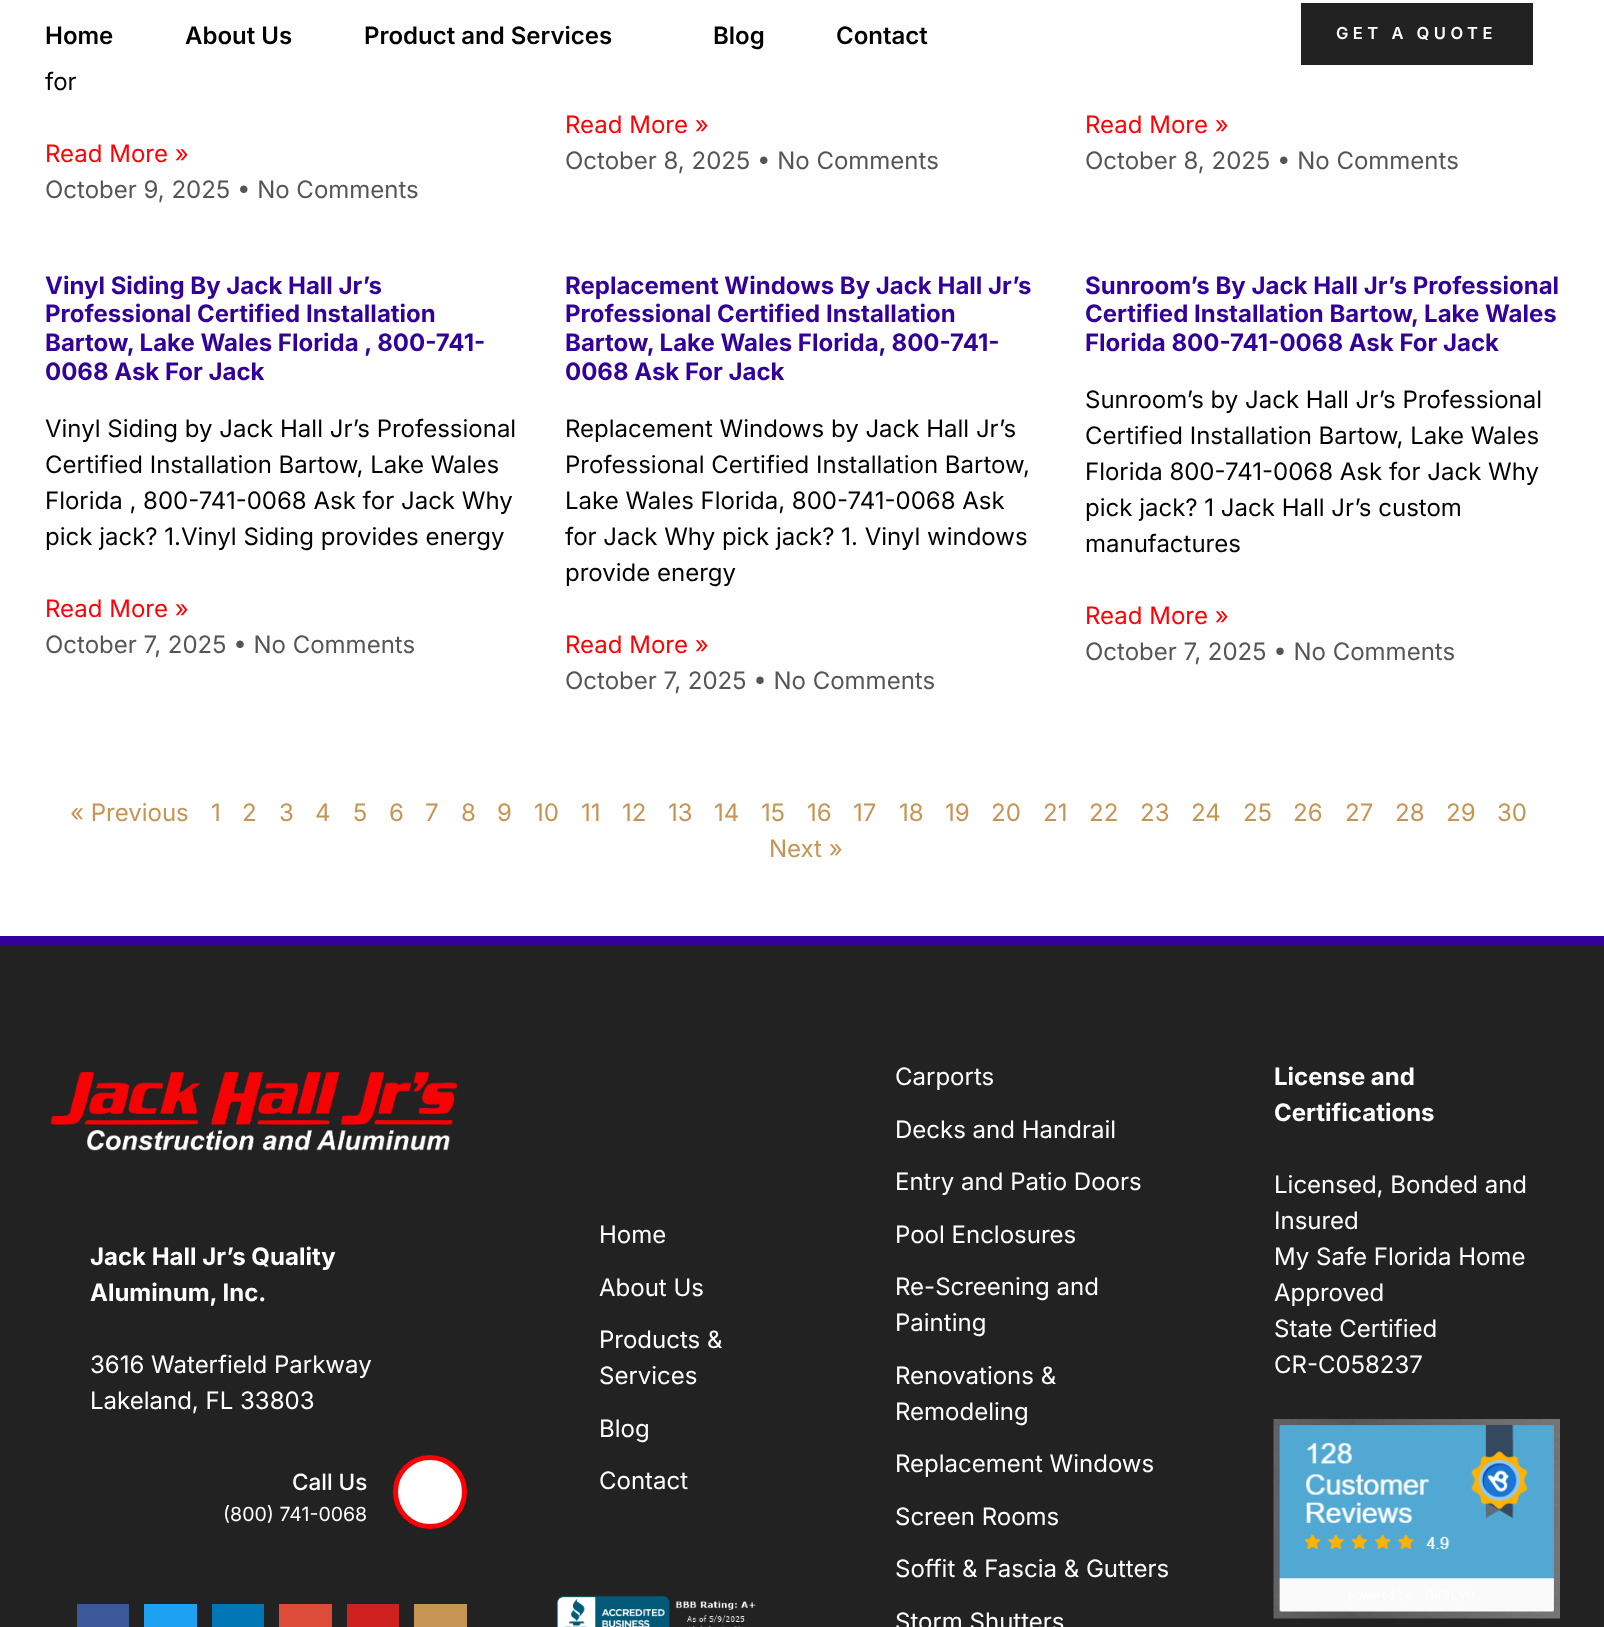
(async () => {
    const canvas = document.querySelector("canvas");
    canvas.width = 1604;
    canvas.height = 1627;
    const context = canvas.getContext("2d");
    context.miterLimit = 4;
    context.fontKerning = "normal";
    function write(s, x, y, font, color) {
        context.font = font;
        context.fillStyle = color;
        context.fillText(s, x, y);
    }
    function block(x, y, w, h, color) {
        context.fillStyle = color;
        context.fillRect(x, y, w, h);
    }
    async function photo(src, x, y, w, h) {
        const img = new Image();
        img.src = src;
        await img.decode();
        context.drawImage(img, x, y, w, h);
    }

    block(0, 0, 1604, 1627, "rgb(255, 255, 255)");
    write("Home", 45, 44, "600 24px Inter", "rgb(0, 0, 0)");
    write("About Us", 185, 44, "600 24px Inter", "rgb(0, 0, 0)");
    write("Product and Services", 364, 44, "600 24px Inter", "rgb(0, 0, 0)");
    write("Blog", 713, 44, "600 24px Inter", "rgb(0, 0, 0)");
    write("Contact", 836, 44, "600 24px Inter", "rgb(0, 0, 0)");
    block(1301, 3, 232, 62, "rgb(34, 34, 34)");
    context.letterSpacing = "4.5px";
    write("GET A QUOTE", 1336, 39, "600 16.5px Inter", "rgb(255, 255, 255)");
    context.letterSpacing = "0px";
    write("for", 45, 90, "24px Inter", "rgb(0, 0, 0)");
    write("Read More »", 45, 162, "24px Inter", "rgb(254, 0, 5)");
    write("October 9, 2025 • No Comments", 45, 198, "24px Inter", "rgb(85, 85, 85)");
    write("Read More »", 565, 133, "24px Inter", "rgb(254, 0, 5)");
    write("October 8, 2025 • No Comments", 565, 169, "24px Inter", "rgb(85, 85, 85)");
    write("Read More »", 1085, 133, "24px Inter", "rgb(254, 0, 5)");
    write("October 8, 2025 • No Comments", 1085, 169, "24px Inter", "rgb(85, 85, 85)");
    write("Vinyl Siding By Jack Hall Jr’s", 45, 294, "bold 24px Inter", "rgb(51, 0, 153)");
    write("Professional Certified Installation", 45, 322, "bold 24px Inter", "rgb(51, 0, 153)");
    write("Bartow, Lake Wales Florida , 800-741-", 45, 351, "bold 24px Inter", "rgb(51, 0, 153)");
    write("0068 Ask For Jack", 45, 380, "bold 24px Inter", "rgb(51, 0, 153)");
    write("Vinyl Siding by Jack Hall Jr’s Professional", 45, 437, "24px Inter", "rgb(0, 0, 0)");
    write("Certified Installation Bartow, Lake Wales", 45, 473, "24px Inter", "rgb(0, 0, 0)");
    write("Florida , 800-741-0068 Ask for Jack Why", 45, 509, "24px Inter", "rgb(0, 0, 0)");
    write("pick jack? 1.Vinyl Siding provides energy", 45, 545, "24px Inter", "rgb(0, 0, 0)");
    write("Read More »", 45, 617, "24px Inter", "rgb(254, 0, 5)");
    write("October 7, 2025 • No Comments", 45, 653, "24px Inter", "rgb(85, 85, 85)");
    write("Replacement Windows By Jack Hall Jr’s", 565, 294, "bold 24px Inter", "rgb(51, 0, 153)");
    write("Professional Certified Installation", 565, 322, "bold 24px Inter", "rgb(51, 0, 153)");
    write("Bartow, Lake Wales Florida, 800-741-", 565, 351, "bold 24px Inter", "rgb(51, 0, 153)");
    write("0068 Ask For Jack", 565, 380, "bold 24px Inter", "rgb(51, 0, 153)");
    write("Replacement Windows by Jack Hall Jr’s", 565, 437, "24px Inter", "rgb(0, 0, 0)");
    write("Professional Certified Installation Bartow,", 565, 473, "24px Inter", "rgb(0, 0, 0)");
    write("Lake Wales Florida, 800-741-0068 Ask", 565, 509, "24px Inter", "rgb(0, 0, 0)");
    write("for Jack Why pick jack? 1. Vinyl windows", 565, 545, "24px Inter", "rgb(0, 0, 0)");
    write("provide energy", 565, 581, "24px Inter", "rgb(0, 0, 0)");
    write("Read More »", 565, 653, "24px Inter", "rgb(254, 0, 5)");
    write("October 7, 2025 • No Comments", 565, 689, "24px Inter", "rgb(85, 85, 85)");
    write("Sunroom’s By Jack Hall Jr’s Professional", 1085, 294, "bold 24px Inter", "rgb(51, 0, 153)");
    write("Certified Installation Bartow, Lake Wales", 1085, 322, "bold 24px Inter", "rgb(51, 0, 153)");
    write("Florida 800-741-0068 Ask For Jack", 1085, 351, "bold 24px Inter", "rgb(51, 0, 153)");
    write("Sunroom’s by Jack Hall Jr’s Professional", 1085, 408, "24px Inter", "rgb(0, 0, 0)");
    write("Certified Installation Bartow, Lake Wales", 1085, 444, "24px Inter", "rgb(0, 0, 0)");
    write("Florida 800-741-0068 Ask for Jack Why", 1085, 480, "24px Inter", "rgb(0, 0, 0)");
    write("pick jack? 1 Jack Hall Jr’s custom", 1085, 516, "24px Inter", "rgb(0, 0, 0)");
    write("manufactures", 1085, 552, "24px Inter", "rgb(0, 0, 0)");
    write("Read More »", 1085, 624, "24px Inter", "rgb(254, 0, 5)");
    write("October 7, 2025 • No Comments", 1085, 660, "24px Inter", "rgb(85, 85, 85)");
    write("« Previous", 70, 821, "24px Inter", "rgb(198, 148, 83)");
    write("1", 211, 821, "24px Inter", "rgb(198, 148, 83)");
    write("2", 242, 821, "24px Inter", "rgb(198, 148, 83)");
    write("3", 279, 821, "24px Inter", "rgb(198, 148, 83)");
    write("4", 315, 821, "24px Inter", "rgb(198, 148, 83)");
    write("5", 353, 821, "24px Inter", "rgb(198, 148, 83)");
    write("6", 389, 821, "24px Inter", "rgb(198, 148, 83)");
    write("7", 425, 821, "24px Inter", "rgb(198, 148, 83)");
    write("8", 461, 821, "24px Inter", "rgb(198, 148, 83)");
    write("9", 497, 821, "24px Inter", "rgb(198, 148, 83)");
    write("10", 534, 821, "24px Inter", "rgb(198, 148, 83)");
    write("11", 581, 821, "24px Inter", "rgb(198, 148, 83)");
    write("12", 622, 821, "24px Inter", "rgb(198, 148, 83)");
    write("13", 668, 821, "24px Inter", "rgb(198, 148, 83)");
    write("14", 714, 821, "24px Inter", "rgb(198, 148, 83)");
    write("15", 761, 821, "24px Inter", "rgb(198, 148, 83)");
    write("16", 807, 821, "24px Inter", "rgb(198, 148, 83)");
    write("17", 853, 821, "24px Inter", "rgb(198, 148, 83)");
    write("18", 899, 821, "24px Inter", "rgb(198, 148, 83)");
    write("19", 945, 821, "24px Inter", "rgb(198, 148, 83)");
    write("20", 991, 821, "24px Inter", "rgb(198, 148, 83)");
    write("21", 1043, 821, "24px Inter", "rgb(198, 148, 83)");
    write("22", 1089, 821, "24px Inter", "rgb(198, 148, 83)");
    write("23", 1140, 821, "24px Inter", "rgb(198, 148, 83)");
    write("24", 1191, 821, "24px Inter", "rgb(198, 148, 83)");
    write("25", 1243, 821, "24px Inter", "rgb(198, 148, 83)");
    write("26", 1293, 821, "24px Inter", "rgb(198, 148, 83)");
    write("27", 1345, 821, "24px Inter", "rgb(198, 148, 83)");
    write("28", 1395, 821, "24px Inter", "rgb(198, 148, 83)");
    write("29", 1446, 821, "24px Inter", "rgb(198, 148, 83)");
    write("30", 1497, 821, "24px Inter", "rgb(198, 148, 83)");
    write("Next »", 769, 857, "24px Inter", "rgb(198, 148, 83)");
    block(0, 945, 1604, 682, "rgb(34, 34, 34)");
    block(0, 936, 1604, 9, "rgb(51, 0, 153)");
    await photo("media/1.png", 50, 1071, 408, 80);
    write("Jack Hall Jr’s Quality", 90, 1265, "bold 24px Inter", "rgb(255, 255, 255)");
    write("Aluminum, Inc.", 90, 1301, "bold 24px Inter", "rgb(255, 255, 255)");
    write("3616 Waterfield Parkway", 90, 1373, "24px Inter", "rgb(255, 255, 255)");
    write("Lakeland, FL 33803", 90, 1409, "24px Inter", "rgb(255, 255, 255)");
    write("Call Us", 292, 1490, "500 22.5px Inter", "rgb(255, 255, 255)");
    write("(800) 741-0068", 223, 1521, "19.5px Inter", "rgb(255, 255, 255)");
    context.beginPath();
    context.arc(430, 1492, 34.5, 0, Math.PI * 2);
    context.fill();
    context.strokeStyle = "rgb(254, 0, 5)";
    context.lineWidth = 5;
    context.stroke();
    block(77, 1604, 52, 23, "rgb(59, 89, 152)");
    block(144, 1604, 53, 23, "rgb(29, 161, 242)");
    block(212, 1604, 52, 23, "rgb(0, 119, 181)");
    block(279, 1604, 53, 23, "rgb(221, 75, 57)");
    block(347, 1604, 52, 23, "rgb(205, 32, 31)");
    block(414, 1604, 53, 23, "rgb(198, 148, 83)");
    write("Home", 599, 1243, "24px Inter", "rgb(255, 255, 255)");
    write("About Us", 599, 1296, "24px Inter", "rgb(255, 255, 255)");
    write("Products &", 599, 1348, "24px Inter", "rgb(255, 255, 255)");
    write("Services", 599, 1384, "24px Inter", "rgb(255, 255, 255)");
    write("Blog", 599, 1437, "24px Inter", "rgb(255, 255, 255)");
    write("Contact", 599, 1489, "24px Inter", "rgb(255, 255, 255)");
    await photo("media/2.png", 556, 1596, 200, 31);
    write("Carports", 895, 1085, "24px Inter", "rgb(255, 255, 255)");
    write("Decks and Handrail", 895, 1138, "24px Inter", "rgb(255, 255, 255)");
    write("Entry and Patio Doors", 895, 1190, "24px Inter", "rgb(255, 255, 255)");
    write("Pool Enclosures", 895, 1243, "24px Inter", "rgb(255, 255, 255)");
    write("Re-Screening and", 895, 1295, "24px Inter", "rgb(255, 255, 255)");
    write("Painting", 895, 1331, "24px Inter", "rgb(255, 255, 255)");
    write("Renovations &", 895, 1384, "24px Inter", "rgb(255, 255, 255)");
    write("Remodeling", 895, 1420, "24px Inter", "rgb(255, 255, 255)");
    write("Replacement Windows", 895, 1472, "24px Inter", "rgb(255, 255, 255)");
    write("Screen Rooms", 895, 1525, "24px Inter", "rgb(255, 255, 255)");
    write("Soffit & Fascia & Gutters", 895, 1577, "24px Inter", "rgb(255, 255, 255)");
    write("Storm Shutters", 895, 1630, "24px Inter", "rgb(255, 255, 255)");
    write("License and", 1274, 1085, "bold 24px Inter", "rgb(255, 255, 255)");
    write("Certifications", 1274, 1121, "bold 24px Inter", "rgb(255, 255, 255)");
    write("Licensed, Bonded and", 1274, 1193, "24px Inter", "rgb(255, 255, 255)");
    write("Insured", 1274, 1229, "24px Inter", "rgb(255, 255, 255)");
    write("My Safe Florida Home", 1274, 1265, "24px Inter", "rgb(255, 255, 255)");
    write("Approved", 1274, 1301, "24px Inter", "rgb(255, 255, 255)");
    write("State Certified", 1274, 1337, "24px Inter", "rgb(255, 255, 255)");
    write("CR-C058237", 1274, 1373, "24px Inter", "rgb(255, 255, 255)");
    await photo("media/3.png", 1273, 1419, 287, 200);
})();
